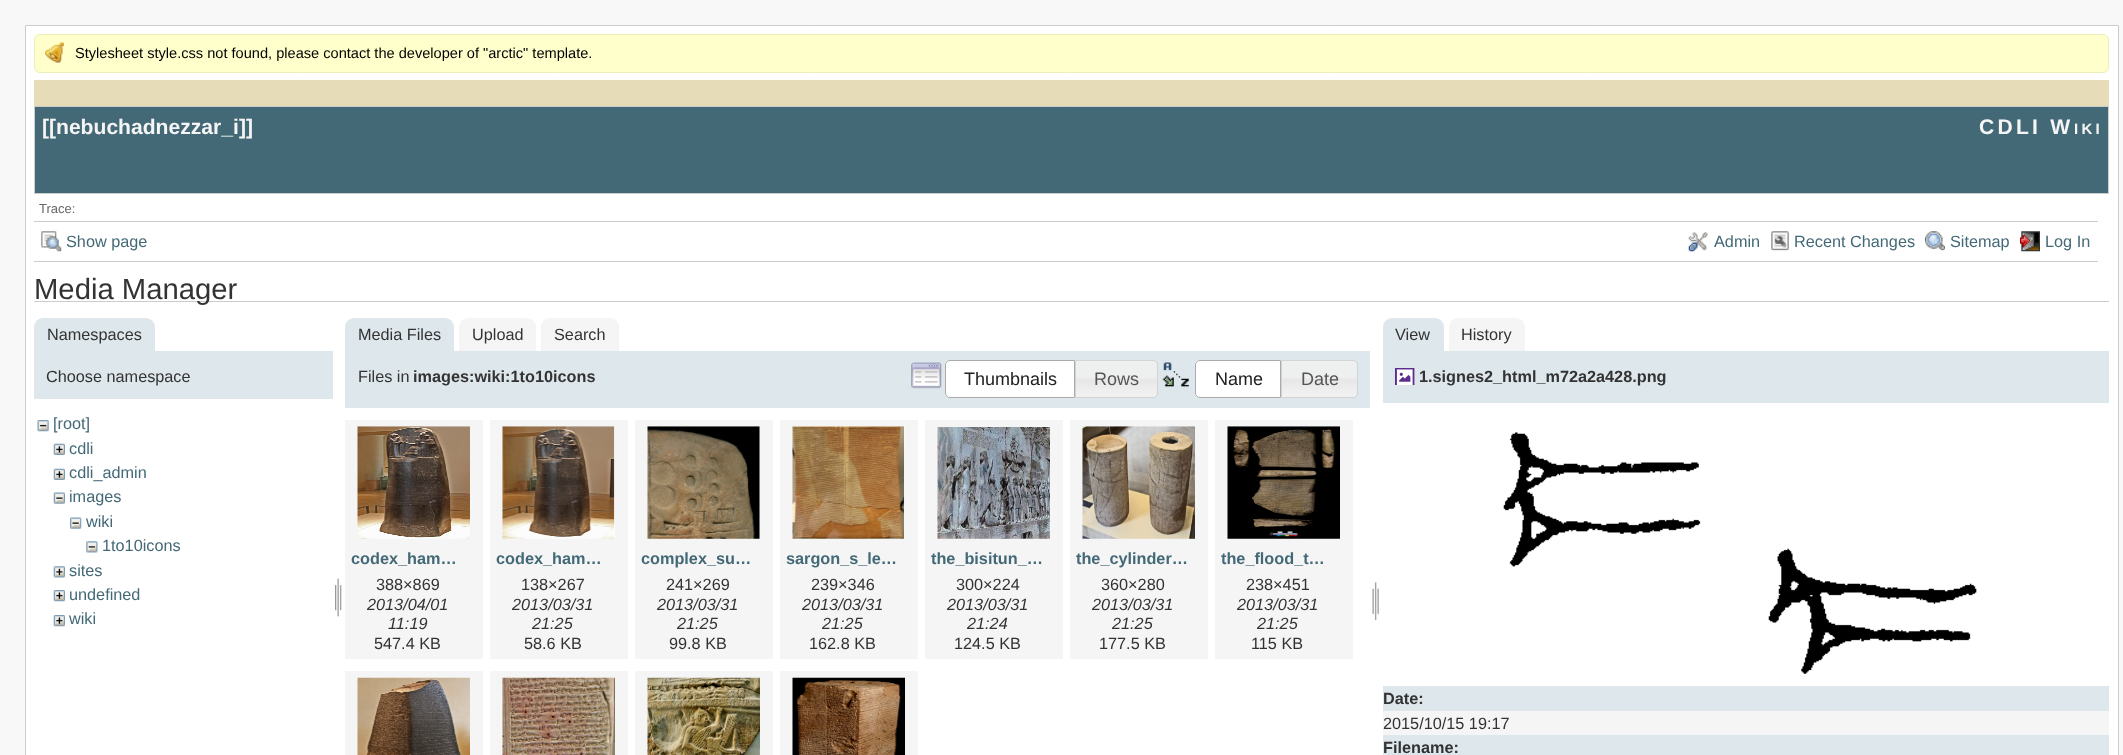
(async () => {
    const canvas = document.querySelector("canvas");
    canvas.width = 2123;
    canvas.height = 755;
    const context = canvas.getContext("2d");
    context.miterLimit = 4;
    context.fontKerning = "normal";
    function write(s, x, y, font, color) {
        context.font = font;
        context.fillStyle = color;
        context.fillText(s, x, y);
    }
    function block(x, y, w, h, color) {
        context.fillStyle = color;
        context.fillRect(x, y, w, h);
    }
    function card(x, y, w, h, r, color) {
        context.fillStyle = color;
        context.beginPath();
        context.roundRect(x, y, w, h, r);
        context.fill();
    }
    async function photo(src, x, y, w, h) {
        const img = new Image();
        img.src = src;
        await img.decode();
        context.drawImage(img, x, y, w, h);
    }

    block(0, 0, 2123, 755, "rgb(248, 248, 248)");
    context.fillStyle = "rgb(255, 255, 255)";
    context.beginPath();
    context.rect(25.5, 25.5, 2093, 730);
    context.fill();
    context.strokeStyle = "rgb(204, 204, 204)";
    context.stroke();
    card(34, 34, 2075, 39, 6, "rgb(255, 255, 204)");
    await photo("media/1.png", 45, 42, 19, 21);
    context.beginPath();
    context.roundRect(34.5, 34.5, 2074, 38, 5.5);
    context.strokeStyle = "rgb(238, 238, 187)";
    context.stroke();
    write("Stylesheet style.css not found, please contact the developer of \"arctic\" template.", 75, 58, "14.6px Liberation Sans", "rgb(0, 0, 0)");
    block(34, 80, 2075, 26, "rgb(230, 220, 184)");
    context.fillStyle = "rgb(67, 105, 118)";
    context.beginPath();
    context.rect(34.5, 106.5, 2074, 87);
    context.fill();
    context.strokeStyle = "rgb(204, 204, 204)";
    context.stroke();
    write("[[", 42, 134, "bold 21.1px Liberation Sans", "rgb(245, 245, 245)");
    write("nebuchadnezzar_i", 56, 134, "bold 21.1px Liberation Sans", "rgb(245, 245, 245)");
    write("]]", 239, 134, "bold 21.1px Liberation Sans", "rgb(245, 245, 245)");
    context.letterSpacing = "3.25px";
    write("CDLI W", 1979, 134, "bold 21.1px Liberation Sans", "rgb(245, 245, 245)");
    write("IKI", 2074, 134, "bold 15px Liberation Sans", "rgb(245, 245, 245)");
    context.letterSpacing = "0px";
    write("Trace:", 39, 213, "13px Liberation Sans", "rgb(102, 102, 102)");
    block(34, 221, 2064, 1, "rgb(204, 204, 204)");
    block(34, 261, 2064, 1, "rgb(204, 204, 204)");
    await photo("media/2.png", 41, 231, 21, 21);
    write("Show page", 66, 247, "16.25px Liberation Sans", "rgb(67, 105, 118)");
    await photo("media/3.png", 1688, 232, 20, 20);
    write("Admin", 1714, 247, "16.25px Liberation Sans", "rgb(67, 105, 118)");
    await photo("media/4.png", 1771, 231, 18, 20);
    write("Recent Changes", 1794, 247, "16.25px Liberation Sans", "rgb(67, 105, 118)");
    await photo("media/5.png", 1925, 231, 20, 20);
    write("Sitemap", 1950, 247, "16.25px Liberation Sans", "rgb(67, 105, 118)");
    await photo("media/6.png", 2020, 231, 20, 21);
    write("Log In", 2045, 247, "16.25px Liberation Sans", "rgb(67, 105, 118)");
    block(34, 301, 2075, 1, "rgb(204, 204, 204)");
    write("Media Manager", 34, 299, "29.25px Liberation Sans", "rgb(51, 51, 51)");
    context.fillStyle = "rgb(222, 231, 236)";
    context.beginPath();
    context.roundRect(34, 318, 121, 33, [9, 9, 0, 0]);
    context.fill();
    write("Namespaces", 47, 340, "16.25px Liberation Sans", "rgb(51, 51, 51)");
    block(34, 351, 299, 48, "rgb(222, 231, 236)");
    write("Choose namespace", 46, 382, "16.25px Liberation Sans", "rgb(51, 51, 51)");
    await photo("media/7.png", 37, 420, 12, 12);
    write("[root]", 53, 429, "16.25px Liberation Sans", "rgb(67, 105, 118)");
    await photo("media/8.png", 53, 443, 12, 12);
    write("cdli", 69, 454, "16.25px Liberation Sans", "rgb(67, 105, 118)");
    await photo("media/8.png", 53, 468, 12, 12);
    write("cdli_admin", 69, 478, "16.25px Liberation Sans", "rgb(67, 105, 118)");
    await photo("media/9.png", 53, 492, 12, 12);
    write("images", 69, 502, "16.25px Liberation Sans", "rgb(67, 105, 118)");
    await photo("media/10.png", 70, 517, 12, 12);
    write("wiki", 86, 527, "16.25px Liberation Sans", "rgb(67, 105, 118)");
    await photo("media/11.png", 86, 541, 12, 12);
    write("1to10icons", 102, 551, "16.25px Liberation Sans", "rgb(67, 105, 118)");
    await photo("media/12.png", 53, 566, 12, 12);
    write("sites", 69, 576, "16.25px Liberation Sans", "rgb(67, 105, 118)");
    await photo("media/13.png", 53, 590, 12, 12);
    write("undefined", 69, 600, "16.25px Liberation Sans", "rgb(67, 105, 118)");
    await photo("media/13.png", 53, 615, 12, 12);
    write("wiki", 69, 624, "16.25px Liberation Sans", "rgb(67, 105, 118)");
    await photo("media/14.png", 335, 578, 7, 39);
    context.fillStyle = "rgb(222, 231, 236)";
    context.beginPath();
    context.roundRect(345, 318, 109, 33, [9, 9, 0, 0]);
    context.fill();
    write("Media Files", 358, 340, "16.25px Liberation Sans", "rgb(51, 51, 51)");
    context.fillStyle = "rgb(245, 245, 245)";
    context.beginPath();
    context.roundRect(459, 318, 77, 33, [9, 9, 0, 0]);
    context.fill();
    write("Upload", 472, 340, "16.25px Liberation Sans", "rgb(51, 51, 51)");
    context.fillStyle = "rgb(245, 245, 245)";
    context.beginPath();
    context.roundRect(541, 318, 78, 33, [9, 9, 0, 0]);
    context.fill();
    write("Search", 554, 340, "16.25px Liberation Sans", "rgb(51, 51, 51)");
    block(345, 351, 1025, 57, "rgb(222, 231, 236)");
    write("Files in", 358, 382, "16.25px Liberation Sans", "rgb(51, 51, 51)");
    write("images:wiki:1to10icons", 413, 382, "bold 16.25px Liberation Sans", "rgb(51, 51, 51)");
    await photo("media/15.png", 911, 362, 31, 27);
    context.fillStyle = "rgb(255, 255, 255)";
    context.beginPath();
    context.roundRect(945, 360, 130, 38, [5, 0, 0, 5]);
    context.fill();
    await photo("media/16.png", 945, 360, 4, 35);
    context.beginPath();
    context.roundRect(945.5, 360.5, 129, 37, [4.5, 0, 0, 4.5]);
    context.strokeStyle = "rgb(170, 170, 170)";
    context.stroke();
    write("Thumbnails", 964, 385, "18px Liberation Sans", "rgb(33, 33, 33)");
    await photo("media/17.png", 1076, 360, 81, 37);
    context.beginPath();
    context.roundRect(1075.5, 360.5, 82, 37, [0, 4.5, 4.5, 0]);
    context.strokeStyle = "rgb(211, 211, 211)";
    context.stroke();
    write("Rows", 1094, 385, "18px Liberation Sans", "rgb(85, 85, 85)");
    await photo("media/18.png", 1162, 362, 27, 25);
    context.fillStyle = "rgb(255, 255, 255)";
    context.beginPath();
    context.roundRect(1195, 360, 86, 38, [5, 0, 0, 5]);
    context.fill();
    await photo("media/16.png", 1195, 360, 4, 35);
    context.beginPath();
    context.roundRect(1195.5, 360.5, 85, 37, [4.5, 0, 0, 4.5]);
    context.strokeStyle = "rgb(170, 170, 170)";
    context.stroke();
    write("Name", 1215, 385, "18px Liberation Sans", "rgb(33, 33, 33)");
    await photo("media/19.png", 1282, 360, 75, 37);
    context.beginPath();
    context.roundRect(1281.5, 360.5, 76, 37, [0, 4.5, 4.5, 0]);
    context.strokeStyle = "rgb(211, 211, 211)";
    context.stroke();
    write("Date", 1301, 385, "18px Liberation Sans", "rgb(85, 85, 85)");
    block(345, 420, 138, 239, "rgb(245, 245, 245)");
    await photo("media/20.png", 357, 426, 113, 113);
    write("codex_ham…", 351, 564, "bold 16.25px Liberation Sans", "rgb(67, 105, 118)");
    write("388×869", 376, 590, "16.25px Liberation Sans", "rgb(51, 51, 51)");
    write("2013/04/01", 367, 610, "italic 16.25px Liberation Sans", "rgb(51, 51, 51)");
    write("11:19", 388, 629, "italic 16.25px Liberation Sans", "rgb(51, 51, 51)");
    write("547.4 KB", 374, 649, "16.25px Liberation Sans", "rgb(51, 51, 51)");
    block(490, 420, 138, 239, "rgb(245, 245, 245)");
    await photo("media/21.png", 502, 426, 113, 113);
    write("codex_ham…", 496, 564, "bold 16.25px Liberation Sans", "rgb(67, 105, 118)");
    write("138×267", 521, 590, "16.25px Liberation Sans", "rgb(51, 51, 51)");
    write("2013/03/31", 512, 610, "italic 16.25px Liberation Sans", "rgb(51, 51, 51)");
    write("21:25", 532, 629, "italic 16.25px Liberation Sans", "rgb(51, 51, 51)");
    write("58.6 KB", 524, 649, "16.25px Liberation Sans", "rgb(51, 51, 51)");
    block(635, 420, 138, 239, "rgb(245, 245, 245)");
    await photo("media/22.png", 647, 426, 113, 113);
    write("complex_su…", 641, 564, "bold 16.25px Liberation Sans", "rgb(67, 105, 118)");
    write("241×269", 666, 590, "16.25px Liberation Sans", "rgb(51, 51, 51)");
    write("2013/03/31", 657, 610, "italic 16.25px Liberation Sans", "rgb(51, 51, 51)");
    write("21:25", 677, 629, "italic 16.25px Liberation Sans", "rgb(51, 51, 51)");
    write("99.8 KB", 669, 649, "16.25px Liberation Sans", "rgb(51, 51, 51)");
    block(780, 420, 138, 239, "rgb(245, 245, 245)");
    await photo("media/23.png", 792, 426, 113, 113);
    write("sargon_s_le…", 786, 564, "bold 16.25px Liberation Sans", "rgb(67, 105, 118)");
    write("239×346", 811, 590, "16.25px Liberation Sans", "rgb(51, 51, 51)");
    write("2013/03/31", 802, 610, "italic 16.25px Liberation Sans", "rgb(51, 51, 51)");
    write("21:25", 822, 629, "italic 16.25px Liberation Sans", "rgb(51, 51, 51)");
    write("162.8 KB", 809, 649, "16.25px Liberation Sans", "rgb(51, 51, 51)");
    block(925, 420, 138, 239, "rgb(245, 245, 245)");
    await photo("media/24.png", 937, 427, 113, 112);
    write("the_bisitun_…", 931, 564, "bold 16.25px Liberation Sans", "rgb(67, 105, 118)");
    write("300×224", 956, 590, "16.25px Liberation Sans", "rgb(51, 51, 51)");
    write("2013/03/31", 947, 610, "italic 16.25px Liberation Sans", "rgb(51, 51, 51)");
    write("21:24", 967, 629, "italic 16.25px Liberation Sans", "rgb(51, 51, 51)");
    write("124.5 KB", 954, 649, "16.25px Liberation Sans", "rgb(51, 51, 51)");
    block(1070, 420, 138, 239, "rgb(245, 245, 245)");
    await photo("media/25.png", 1082, 426, 113, 113);
    write("the_cylinder…", 1076, 564, "bold 16.25px Liberation Sans", "rgb(67, 105, 118)");
    write("360×280", 1101, 590, "16.25px Liberation Sans", "rgb(51, 51, 51)");
    write("2013/03/31", 1092, 610, "italic 16.25px Liberation Sans", "rgb(51, 51, 51)");
    write("21:25", 1112, 629, "italic 16.25px Liberation Sans", "rgb(51, 51, 51)");
    write("177.5 KB", 1099, 649, "16.25px Liberation Sans", "rgb(51, 51, 51)");
    block(1215, 420, 138, 239, "rgb(245, 245, 245)");
    await photo("media/26.png", 1227, 426, 113, 113);
    write("the_flood_t…", 1221, 564, "bold 16.25px Liberation Sans", "rgb(67, 105, 118)");
    write("238×451", 1246, 590, "16.25px Liberation Sans", "rgb(51, 51, 51)");
    write("2013/03/31", 1237, 610, "italic 16.25px Liberation Sans", "rgb(51, 51, 51)");
    write("21:25", 1257, 629, "italic 16.25px Liberation Sans", "rgb(51, 51, 51)");
    write("115 KB", 1251, 649, "16.25px Liberation Sans", "rgb(51, 51, 51)");
    block(345, 671, 138, 84, "rgb(245, 245, 245)");
    await photo("media/27.png", 357, 677, 113, 78);
    block(490, 671, 138, 84, "rgb(245, 245, 245)");
    await photo("media/28.png", 502, 677, 113, 78);
    block(635, 671, 138, 84, "rgb(245, 245, 245)");
    await photo("media/29.png", 647, 677, 113, 78);
    block(780, 671, 138, 84, "rgb(245, 245, 245)");
    await photo("media/30.png", 792, 677, 113, 78);
    await photo("media/31.png", 1372, 581, 7, 40);
    context.fillStyle = "rgb(222, 231, 236)";
    context.beginPath();
    context.roundRect(1383, 318, 61, 33, [9, 9, 0, 0]);
    context.fill();
    write("View", 1395, 340, "16.25px Liberation Sans", "rgb(51, 51, 51)");
    context.fillStyle = "rgb(245, 245, 245)";
    context.beginPath();
    context.roundRect(1449, 318, 76, 33, [9, 9, 0, 0]);
    context.fill();
    write("History", 1461, 340, "16.25px Liberation Sans", "rgb(51, 51, 51)");
    block(1383, 351, 726, 52, "rgb(222, 231, 236)");
    await photo("media/32.png", 1395, 368, 20, 17);
    write("1.signes2_html_m72a2a428.png", 1419, 382, "bold 16.25px Liberation Sans", "rgb(51, 51, 51)");
    await photo("media/33.png", 1503, 432, 474, 242);
    block(1383, 686, 726, 25, "rgb(222, 231, 236)");
    write("Date:", 1383, 704, "bold 16.25px Liberation Sans", "rgb(51, 51, 51)");
    block(1383, 711, 726, 24, "rgb(245, 245, 245)");
    write("2015/10/15 19:17", 1383, 729, "16.25px Liberation Sans", "rgb(51, 51, 51)");
    block(1383, 735, 726, 20, "rgb(222, 231, 236)");
    write("Filename:", 1383, 753, "bold 16.25px Liberation Sans", "rgb(51, 51, 51)");
})();
